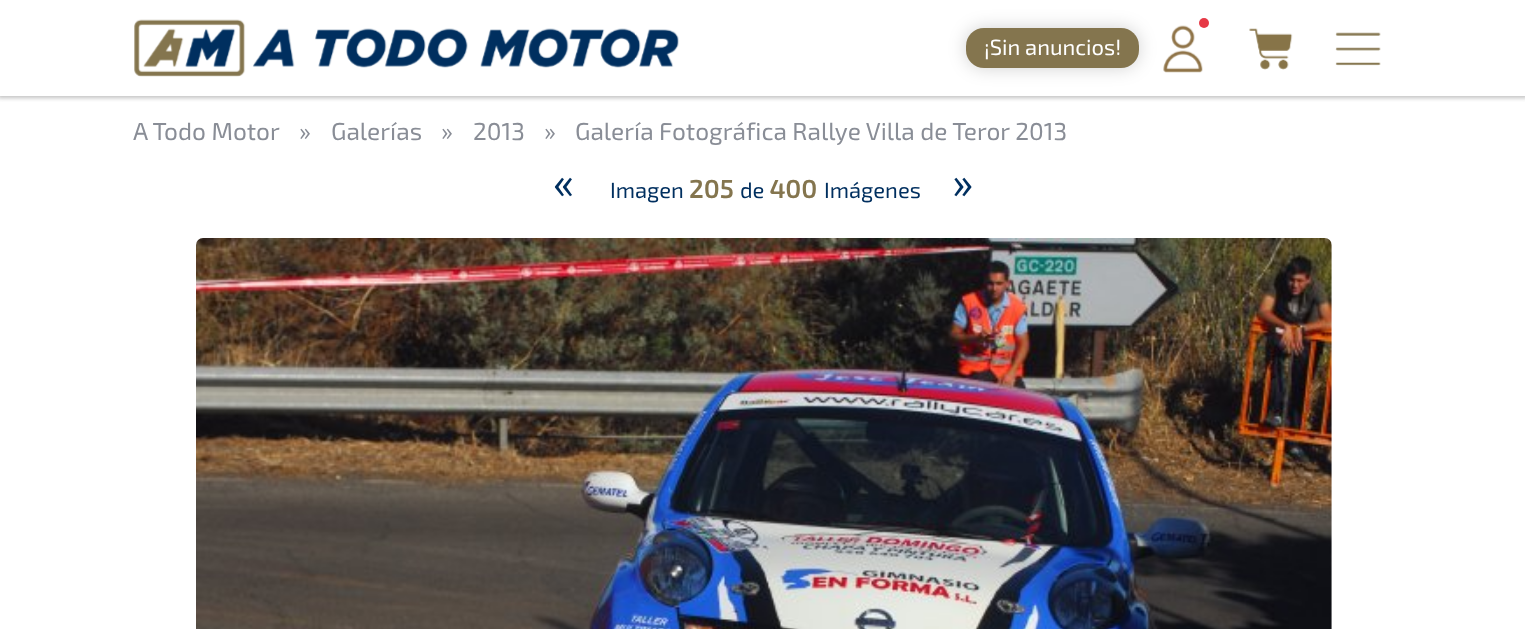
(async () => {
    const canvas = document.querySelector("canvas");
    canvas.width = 1525;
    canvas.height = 629;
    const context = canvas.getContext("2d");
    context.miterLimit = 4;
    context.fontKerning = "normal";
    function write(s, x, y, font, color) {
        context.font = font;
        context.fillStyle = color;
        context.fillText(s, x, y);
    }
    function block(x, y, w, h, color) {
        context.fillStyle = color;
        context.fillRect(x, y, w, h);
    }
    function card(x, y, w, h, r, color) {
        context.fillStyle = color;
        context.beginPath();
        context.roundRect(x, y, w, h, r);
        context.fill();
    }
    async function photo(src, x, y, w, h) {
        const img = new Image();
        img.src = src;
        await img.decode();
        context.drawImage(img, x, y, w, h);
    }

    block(0, 0, 1525, 629, "rgb(255, 255, 255)");
    context.save();
    context.beginPath();
    context.rect(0, 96, 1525, 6);
    context.clip();
    context.fillStyle = "rgb(192, 192, 192)";
    context.filter = "blur(2px)";
    context.beginPath();
    context.rect(-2, -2, 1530, 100);
    context.fill();
    context.filter = "none";
    context.restore();
    await photo("media/1.png", 134, 19, 545, 58);
    context.fillStyle = "rgba(0, 0, 0, 0.18)";
    context.filter = "blur(9px)";
    context.beginPath();
    context.roundRect(966, 28, 173, 40, 18);
    context.fill();
    context.filter = "none";
    card(966, 28, 173, 40, 18, "rgb(132, 117, 78)");
    write("¡Sin anuncios!", 984, 55, "22px 'Exo 2'", "rgb(255, 255, 255)");
    await photo("media/2.png", 1163, 25, 40, 48);
    context.fillStyle = "rgb(230, 57, 70)";
    context.beginPath();
    context.arc(1204, 23, 5, 0, Math.PI * 2);
    context.fill();
    await photo("media/3.png", 1249, 28, 44, 42);
    await photo("media/4.png", 1335, 32, 46, 34);
    write("A Todo Motor", 133, 140, "24.5px 'Exo 2'", "rgb(137, 141, 150)");
    write("»", 299, 140, "24.5px 'Exo 2'", "rgb(137, 141, 150)");
    write("Galerías", 331, 140, "24.5px 'Exo 2'", "rgb(137, 141, 150)");
    write("»", 441, 140, "24.5px 'Exo 2'", "rgb(137, 141, 150)");
    write("2013", 473, 140, "24.5px 'Exo 2'", "rgb(137, 141, 150)");
    write("»", 544, 140, "24.5px 'Exo 2'", "rgb(137, 141, 150)");
    write("Galería Fotográfica Rallye Villa de Teror 2013", 575, 140, "24.5px 'Exo 2'", "rgb(137, 141, 150)");
    write("«", 553, 198, "44px 'Exo 2'", "rgb(0, 47, 95)");
    write("Imagen", 610, 198, "22px 'Exo 2'", "rgb(0, 47, 95)");
    write("205", 689, 198, "600 26px 'Exo 2'", "rgb(132, 117, 78)");
    write("de", 740, 198, "22px 'Exo 2'", "rgb(0, 47, 95)");
    write("400", 769, 198, "600 26px 'Exo 2'", "rgb(132, 117, 78)");
    write("Imágenes", 824, 198, "22px 'Exo 2'", "rgb(0, 47, 95)");
    write("»", 952, 198, "44px 'Exo 2'", "rgb(0, 47, 95)");
    await photo("media/5.png", 196, 238, 1136, 391);
})();
